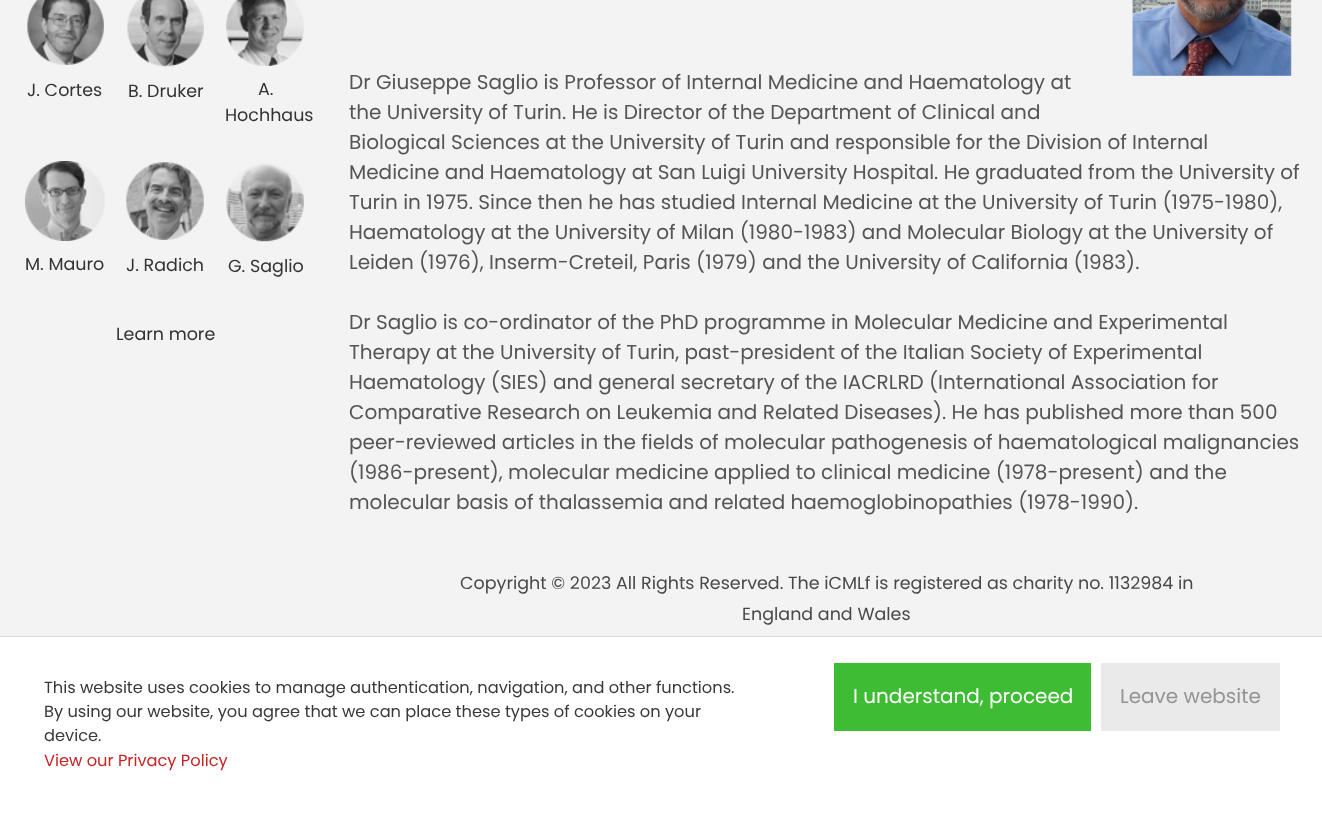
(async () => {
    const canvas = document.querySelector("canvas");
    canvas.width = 1322;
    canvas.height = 818;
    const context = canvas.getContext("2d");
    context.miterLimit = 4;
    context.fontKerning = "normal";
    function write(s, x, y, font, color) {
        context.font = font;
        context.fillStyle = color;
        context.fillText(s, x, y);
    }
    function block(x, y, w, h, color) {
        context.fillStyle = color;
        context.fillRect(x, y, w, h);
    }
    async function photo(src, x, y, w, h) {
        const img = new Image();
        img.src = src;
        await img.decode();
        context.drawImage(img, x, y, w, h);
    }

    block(0, 0, 1322, 818, "rgb(243, 243, 243)");
    await photo("media/1.png", 27, 0, 77, 65);
    write("J. Cortes", 27, 96, "17.5px Poppins", "rgb(51, 51, 51)");
    await photo("media/2.png", 127, 0, 77, 67);
    write("B. Druker", 128, 97, "17.5px Poppins", "rgb(51, 51, 51)");
    await photo("media/3.png", 226, 0, 78, 66);
    write("A.", 258, 95, "17.5px Poppins", "rgb(51, 51, 51)");
    write("Hochhaus", 225, 121, "17.5px Poppins", "rgb(51, 51, 51)");
    await photo("media/4.png", 25, 161, 80, 80);
    write("M. Mauro", 25, 270, "17.5px Poppins", "rgb(51, 51, 51)");
    await photo("media/5.png", 126, 162, 78, 78);
    write("J. Radich", 126, 271, "17.5px Poppins", "rgb(51, 51, 51)");
    await photo("media/6.png", 226, 163, 78, 79);
    write("G. Saglio", 228, 272, "17.5px Poppins", "rgb(51, 51, 51)");
    write("Learn more", 116, 340, "17.5px Poppins", "rgb(51, 51, 51)");
    await photo("media/7.png", 1132, 0, 160, 76);
    write("Dr Giuseppe Saglio is Professor of Internal Medicine and Haematology at", 349, 89, "20px Poppins", "rgb(85, 85, 85)");
    write("the University of Turin. He is Director of the Department of Clinical and", 349, 119, "20px Poppins", "rgb(85, 85, 85)");
    write("Biological Sciences at the University of Turin and responsible for the Division of Internal", 349, 149, "20px Poppins", "rgb(85, 85, 85)");
    write("Medicine and Haematology at San Luigi University Hospital. He graduated from the University of", 349, 179, "20px Poppins", "rgb(85, 85, 85)");
    write("Turin in 1975. Since then he has studied Internal Medicine at the University of Turin (1975-1980),", 349, 209, "20px Poppins", "rgb(85, 85, 85)");
    write("Haematology at the University of Milan (1980-1983) and Molecular Biology at the University of", 349, 239, "20px Poppins", "rgb(85, 85, 85)");
    write("Leiden (1976), Inserm-Creteil, Paris (1979) and the University of California (1983).", 349, 269, "20px Poppins", "rgb(85, 85, 85)");
    write("Dr Saglio is co-ordinator of the PhD programme in Molecular Medicine and Experimental", 349, 329, "20px Poppins", "rgb(85, 85, 85)");
    write("Therapy at the University of Turin, past-president of the Italian Society of Experimental", 349, 359, "20px Poppins", "rgb(85, 85, 85)");
    write("Haematology (SIES) and general secretary of the IACRLRD (International Association for", 349, 389, "20px Poppins", "rgb(85, 85, 85)");
    write("Comparative Research on Leukemia and Related Diseases). He has published more than 500", 349, 419, "20px Poppins", "rgb(85, 85, 85)");
    write("peer-reviewed articles in the fields of molecular pathogenesis of haematological malignancies", 349, 449, "20px Poppins", "rgb(85, 85, 85)");
    write("(1986-present), molecular medicine applied to clinical medicine (1978-present) and the", 349, 479, "20px Poppins", "rgb(85, 85, 85)");
    write("molecular basis of thalassemia and related haemoglobinopathies (1978-1990).", 349, 509, "20px Poppins", "rgb(85, 85, 85)");
    write("Copyright © 2023 All Rights Reserved. The iCMLf is registered as charity no. 1132984 in", 460, 589, "17.5px Poppins", "rgb(73, 73, 73)");
    write("England and Wales", 742, 620, "17.5px Poppins", "rgb(73, 73, 73)");
    block(0, 637, 1322, 181, "rgb(255, 255, 255)");
    block(0, 636, 1322, 1, "rgb(221, 219, 219)");
    write("This website uses cookies to manage authentication, navigation, and other functions.", 44, 693, "16.25px Poppins", "rgb(57, 57, 57)");
    write("By using our website, you agree that we can place these types of cookies on your", 44, 717, "16.25px Poppins", "rgb(57, 57, 57)");
    write("device.", 44, 741, "16.25px Poppins", "rgb(57, 57, 57)");
    write("View our Privacy Policy", 44, 766, "16.25px Poppins", "rgb(201, 35, 34)");
    block(834, 663, 257, 68, "rgb(62, 188, 52)");
    write("I understand, proceed", 853, 703, "20px Poppins", "rgb(255, 255, 255)");
    block(1101, 663, 179, 68, "rgb(234, 234, 234)");
    write("Leave website", 1120, 703, "20px Poppins", "rgb(148, 148, 148)");
})();
